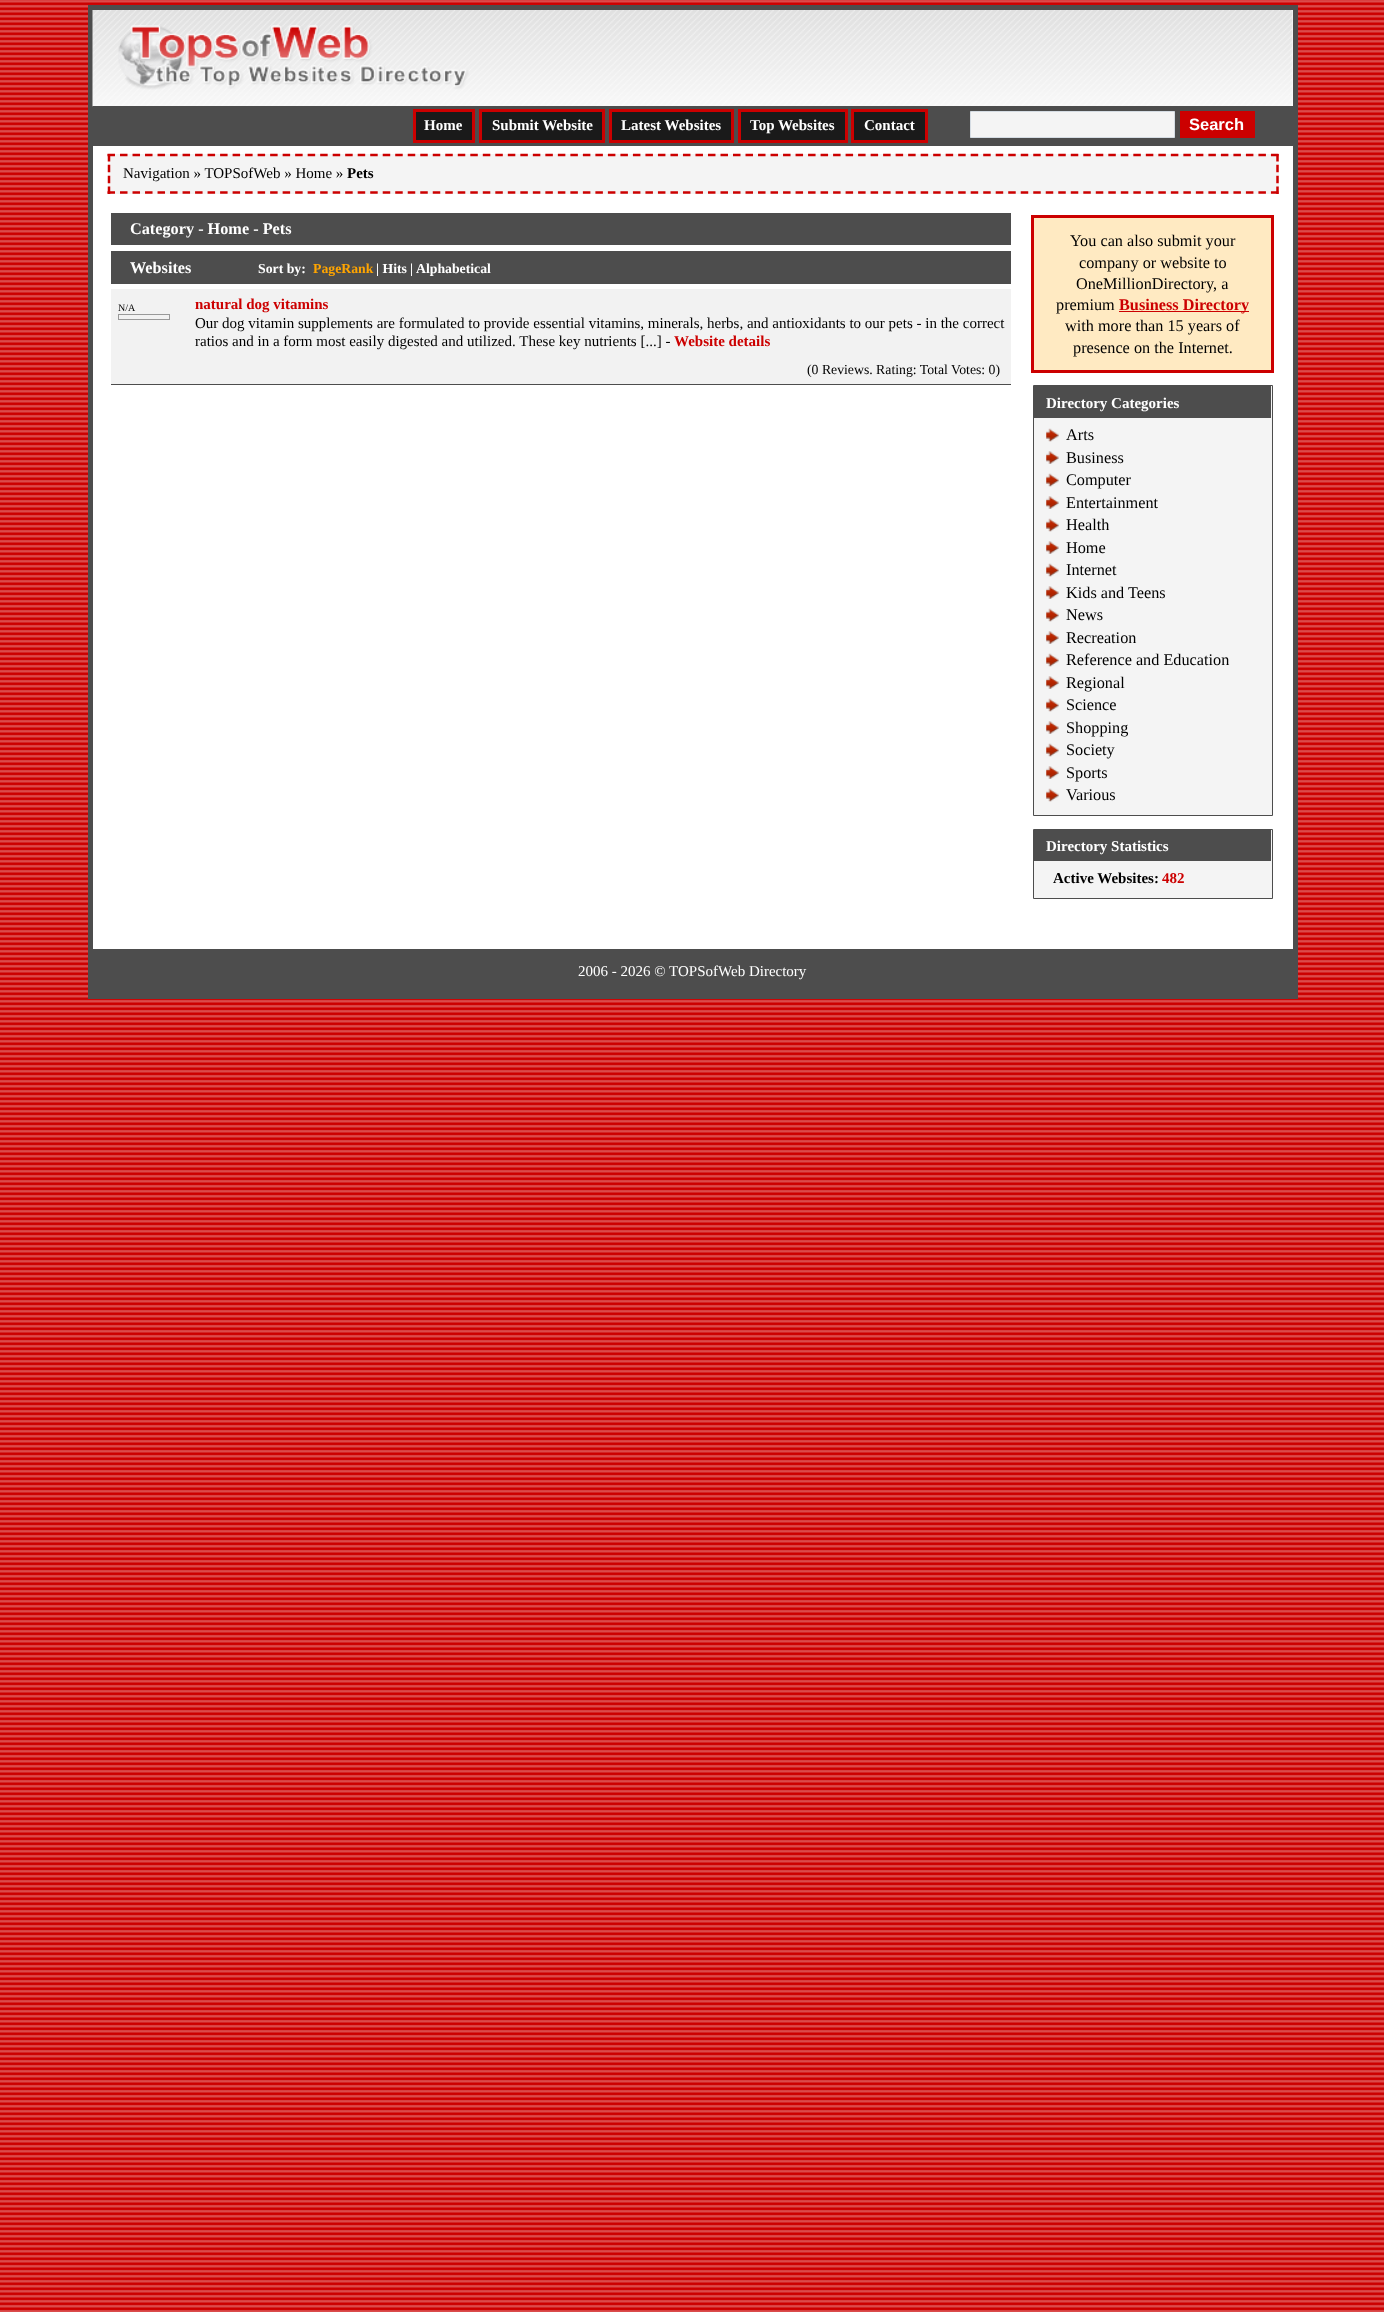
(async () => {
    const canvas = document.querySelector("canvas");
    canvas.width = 1384;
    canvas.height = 2312;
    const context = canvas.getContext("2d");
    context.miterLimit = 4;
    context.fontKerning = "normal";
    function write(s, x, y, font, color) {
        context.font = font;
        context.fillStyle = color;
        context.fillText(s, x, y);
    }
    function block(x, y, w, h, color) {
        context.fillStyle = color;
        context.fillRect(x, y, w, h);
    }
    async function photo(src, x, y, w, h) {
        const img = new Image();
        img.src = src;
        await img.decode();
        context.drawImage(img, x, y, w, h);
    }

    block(0, 0, 1384, 2312, "rgb(255, 255, 255)");
    await photo("media/1.png", 0, 0, 1384, 2312);
    block(93, 10, 1200, 939, "rgb(255, 255, 255)");
    context.strokeStyle = "rgb(77, 77, 77)";
    context.lineWidth = 5;
    context.strokeRect(90.5, 7.5, 1205, 989);
    await photo("media/2.png", 92, 10, 1201, 97);
    await photo("media/3.png", 118, 25, 351, 65);
    block(93, 106, 1200, 40, "rgb(77, 77, 77)");
    context.fillStyle = "rgb(26, 26, 26)";
    context.beginPath();
    context.rect(414.5, 110.5, 59, 31);
    context.fill();
    context.strokeStyle = "rgb(204, 0, 0)";
    context.lineWidth = 3;
    context.stroke();
    write("Home", 424, 130, "bold 15px Liberation Serif", "rgb(255, 255, 255)");
    context.fillStyle = "rgb(26, 26, 26)";
    context.beginPath();
    context.rect(480.5, 110.5, 123, 31);
    context.fill();
    context.stroke();
    write("Submit Website", 492, 130, "bold 15px Liberation Serif", "rgb(255, 255, 255)");
    context.fillStyle = "rgb(26, 26, 26)";
    context.beginPath();
    context.rect(610.5, 110.5, 122, 31);
    context.fill();
    context.stroke();
    write("Latest Websites", 621, 130, "bold 15px Liberation Serif", "rgb(255, 255, 255)");
    context.fillStyle = "rgb(26, 26, 26)";
    context.beginPath();
    context.rect(739.5, 110.5, 107, 31);
    context.fill();
    context.stroke();
    write("Top Websites", 750, 130, "bold 15px Liberation Serif", "rgb(255, 255, 255)");
    context.fillStyle = "rgb(26, 26, 26)";
    context.beginPath();
    context.rect(852.5, 110.5, 74, 31);
    context.fill();
    context.stroke();
    write("Contact", 864, 130, "bold 15px Liberation Serif", "rgb(255, 255, 255)");
    context.fillStyle = "rgb(244, 244, 244)";
    context.beginPath();
    context.rect(970.5, 111.5, 204, 26);
    context.fill();
    context.strokeStyle = "rgb(213, 220, 227)";
    context.lineWidth = 1;
    context.stroke();
    block(1180, 111, 75, 27, "rgb(204, 0, 0)");
    write("Search", 1189, 130, "bold 16.5px Liberation Sans", "rgb(255, 255, 255)");
    block(108, 154, 1171, 40, "rgb(244, 244, 244)");
    context.beginPath();
    context.moveTo(107.5, 155);
    context.lineTo(1279, 155);
    context.strokeStyle = "rgb(204, 0, 0)";
    context.lineWidth = 2.5;
    context.setLineDash([7.5, 5.01]);
    context.stroke();
    context.beginPath();
    context.moveTo(1277.5, 154);
    context.lineTo(1277.5, 194);
    context.setLineDash([7.5, 3.34]);
    context.stroke();
    context.beginPath();
    context.moveTo(107.5, 192.5);
    context.lineTo(1279, 192.5);
    context.setLineDash([7.5, 5.01]);
    context.stroke();
    context.beginPath();
    context.moveTo(109, 154);
    context.lineTo(109, 194);
    context.setLineDash([7.5, 3.34]);
    context.stroke();
    write("Navigation » TOPSofWeb » Home »", 123, 178, "15px Liberation Serif", "rgb(0, 0, 0)");
    write("Pets", 347, 178, "bold 15px Liberation Serif", "rgb(0, 0, 0)");
    block(111, 213, 900, 32, "rgb(77, 77, 77)");
    write("Category - Home - Pets", 130, 234, "bold 16.25px Liberation Serif", "rgb(255, 255, 255)");
    block(111, 251, 900, 33, "rgb(77, 77, 77)");
    write("Websites", 130, 273, "bold 16.25px Liberation Serif", "rgb(255, 255, 255)");
    write("Sort by:", 258, 273, "bold 13.75px Liberation Serif", "rgb(255, 255, 255)");
    write("PageRank", 313, 273, "bold 13.75px Liberation Serif", "rgb(255, 165, 0)");
    write("| Hits", 376, 273, "bold 13.75px Liberation Serif", "rgb(255, 255, 255)");
    write("|", 410, 273, "bold 13.75px Liberation Serif", "rgb(255, 255, 255)");
    write("Alphabetical", 416, 273, "bold 13.75px Liberation Serif", "rgb(255, 255, 255)");
    block(111, 384, 900, 1, "rgb(77, 77, 77)");
    block(111, 289, 900, 95, "rgb(242, 242, 242)");
    write("N/A", 118, 311, "10px Liberation Serif", "rgb(0, 0, 0)");
    context.strokeStyle = "rgb(153, 153, 153)";
    context.lineWidth = 1;
    context.setLineDash([]);
    context.strokeRect(118.5, 314.5, 51, 5);
    write("natural dog vitamins", 195, 309, "bold 15px Liberation Serif", "rgb(204, 0, 0)");
    write("Our dog vitamin supplements are formulated to provide essential vitamins, minerals, herbs, and antioxidants to our pets - in the correct", 195, 328, "15px Liberation Serif", "rgb(0, 0, 0)");
    write("ratios and in a form most easily digested and utilized. These key nutrients [...] -", 195, 346, "15px Liberation Serif", "rgb(0, 0, 0)");
    write("Website details", 674, 346, "bold 15px Liberation Serif", "rgb(204, 0, 0)");
    write("(0 Reviews. Rating: Total Votes: 0)", 807, 374, "13.75px Liberation Serif", "rgb(0, 0, 0)");
    context.fillStyle = "rgb(255, 234, 194)";
    context.beginPath();
    context.rect(1032.5, 216.5, 240, 155);
    context.fill();
    context.strokeStyle = "rgb(204, 0, 0)";
    context.lineWidth = 3;
    context.stroke();
    write("You can also submit your", 1070, 246, "16.25px Liberation Serif", "rgb(0, 0, 0)");
    write("company or website to", 1079, 268, "16.25px Liberation Serif", "rgb(0, 0, 0)");
    write("OneMillionDirectory, a", 1076, 289, "16.25px Liberation Serif", "rgb(0, 0, 0)");
    write("premium", 1056, 310, "16.25px Liberation Serif", "rgb(0, 0, 0)");
    block(1119, 311, 130, 1, "rgb(204, 0, 0)");
    write("Business Directory", 1119, 310, "bold 16.25px Liberation Serif", "rgb(204, 0, 0)");
    write("with more than 15 years of", 1065, 331, "16.25px Liberation Serif", "rgb(0, 0, 0)");
    write("presence on the Internet.", 1073, 353, "16.25px Liberation Serif", "rgb(0, 0, 0)");
    context.fillStyle = "rgb(244, 244, 244)";
    context.beginPath();
    context.rect(1033.5, 385.5, 239, 430);
    context.fill();
    context.strokeStyle = "rgb(77, 77, 77)";
    context.lineWidth = 1;
    context.stroke();
    block(1034, 386, 237, 32, "rgb(77, 77, 77)");
    write("Directory Categories", 1046, 408, "bold 15px Liberation Serif", "rgb(255, 255, 255)");
    await photo("media/4.png", 1046, 428, 13, 14);
    write("Arts", 1066, 440, "16.25px Liberation Serif", "rgb(0, 0, 0)");
    await photo("media/5.png", 1046, 451, 13, 13);
    write("Business", 1066, 463, "16.25px Liberation Serif", "rgb(0, 0, 0)");
    await photo("media/4.png", 1046, 473, 13, 14);
    write("Computer", 1066, 485, "16.25px Liberation Serif", "rgb(0, 0, 0)");
    await photo("media/5.png", 1046, 496, 13, 13);
    write("Entertainment", 1066, 508, "16.25px Liberation Serif", "rgb(0, 0, 0)");
    await photo("media/4.png", 1046, 518, 13, 14);
    write("Health", 1066, 530, "16.25px Liberation Serif", "rgb(0, 0, 0)");
    await photo("media/5.png", 1046, 541, 13, 13);
    write("Home", 1066, 553, "16.25px Liberation Serif", "rgb(0, 0, 0)");
    await photo("media/4.png", 1046, 563, 13, 14);
    write("Internet", 1066, 575, "16.25px Liberation Serif", "rgb(0, 0, 0)");
    await photo("media/6.png", 1046, 586, 13, 13);
    write("Kids and Teens", 1066, 598, "16.25px Liberation Serif", "rgb(0, 0, 0)");
    await photo("media/4.png", 1046, 608, 13, 14);
    write("News", 1066, 620, "16.25px Liberation Serif", "rgb(0, 0, 0)");
    await photo("media/5.png", 1046, 631, 13, 13);
    write("Recreation", 1066, 643, "16.25px Liberation Serif", "rgb(0, 0, 0)");
    await photo("media/4.png", 1046, 653, 13, 14);
    write("Reference and Education", 1066, 665, "16.25px Liberation Serif", "rgb(0, 0, 0)");
    await photo("media/5.png", 1046, 676, 13, 13);
    write("Regional", 1066, 688, "16.25px Liberation Serif", "rgb(0, 0, 0)");
    await photo("media/4.png", 1046, 698, 13, 14);
    write("Science", 1066, 710, "16.25px Liberation Serif", "rgb(0, 0, 0)");
    await photo("media/5.png", 1046, 721, 13, 13);
    write("Shopping", 1066, 733, "16.25px Liberation Serif", "rgb(0, 0, 0)");
    await photo("media/4.png", 1046, 743, 13, 14);
    write("Society", 1066, 755, "16.25px Liberation Serif", "rgb(0, 0, 0)");
    await photo("media/5.png", 1046, 766, 13, 13);
    write("Sports", 1066, 778, "16.25px Liberation Serif", "rgb(0, 0, 0)");
    await photo("media/4.png", 1046, 788, 13, 14);
    write("Various", 1066, 800, "16.25px Liberation Serif", "rgb(0, 0, 0)");
    context.fillStyle = "rgb(244, 244, 244)";
    context.beginPath();
    context.rect(1033.5, 829.5, 239, 69);
    context.fill();
    context.stroke();
    block(1034, 830, 237, 31, "rgb(77, 77, 77)");
    write("Directory Statistics", 1046, 851, "bold 15px Liberation Serif", "rgb(255, 255, 255)");
    write("Active Websites:", 1053, 883, "bold 15px Liberation Serif", "rgb(0, 0, 0)");
    write("482", 1162, 883, "bold 15px Liberation Serif", "rgb(204, 0, 0)");
    block(93, 949, 1200, 45, "rgb(77, 77, 77)");
    write("2006 - 2026 © TOPSofWeb Directory", 578, 976, "15px Liberation Serif", "rgb(255, 255, 255)");
})();
